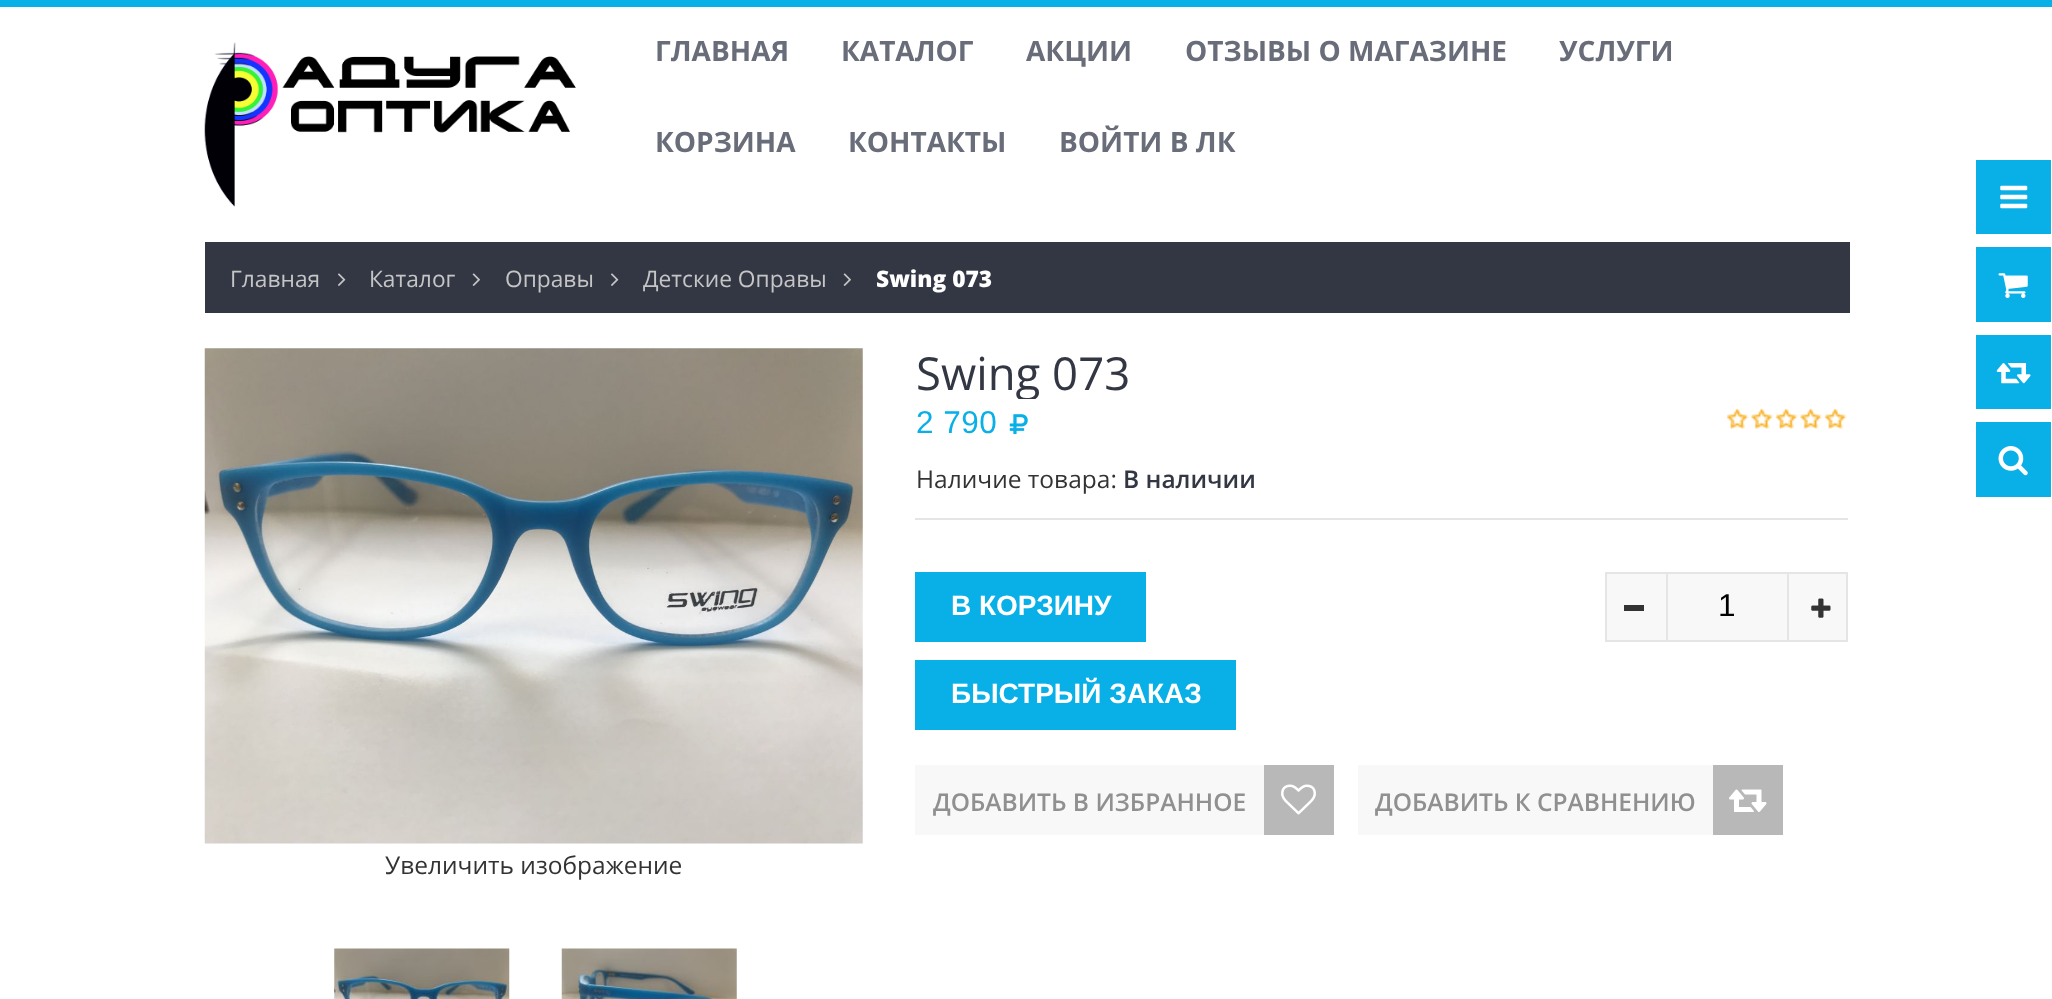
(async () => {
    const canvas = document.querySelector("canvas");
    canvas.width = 2052;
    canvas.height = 999;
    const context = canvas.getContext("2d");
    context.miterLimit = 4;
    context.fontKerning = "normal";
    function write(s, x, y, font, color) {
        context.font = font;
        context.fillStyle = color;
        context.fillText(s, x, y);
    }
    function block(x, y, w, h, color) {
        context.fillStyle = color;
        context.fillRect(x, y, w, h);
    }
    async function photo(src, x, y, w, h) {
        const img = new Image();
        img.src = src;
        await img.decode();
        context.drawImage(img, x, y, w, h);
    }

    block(0, 0, 2052, 999, "rgb(255, 255, 255)");
    block(0, 0, 2052, 7, "rgb(9, 175, 231)");
    await photo("media/1.png", 204, 42, 372, 165);
    write("ГЛАВНАЯ", 655, 61, "bold 28px Open Sans", "rgb(105, 108, 121)");
    write("КАТАЛОГ", 841, 61, "bold 28px Open Sans", "rgb(105, 108, 121)");
    write("АКЦИИ", 1026, 61, "bold 28px Open Sans", "rgb(105, 108, 121)");
    write("ОТЗЫВЫ О МАГАЗИНЕ", 1185, 61, "bold 28px Open Sans", "rgb(105, 108, 121)");
    write("УСЛУГИ", 1559, 61, "bold 28px Open Sans", "rgb(105, 108, 121)");
    write("КОРЗИНА", 655, 152, "bold 28px Open Sans", "rgb(105, 108, 121)");
    write("КОНТАКТЫ", 848, 152, "bold 28px Open Sans", "rgb(105, 108, 121)");
    write("ВОЙТИ В ЛК", 1059, 152, "bold 28px Open Sans", "rgb(105, 108, 121)");
    block(205, 242, 1645, 71, "rgb(51, 55, 68)");
    write("Главная", 230, 287, "22.75px Open Sans", "rgb(197, 197, 197)");
    await photo("media/2.png", 338, 273, 8, 13);
    write("Каталог", 369, 287, "22.75px Open Sans", "rgb(197, 197, 197)");
    await photo("media/3.png", 472, 273, 8, 13);
    write("Оправы", 505, 287, "22.75px Open Sans", "rgb(197, 197, 197)");
    await photo("media/2.png", 611, 273, 8, 13);
    write("Детские Оправы", 643, 287, "22.75px Open Sans", "rgb(197, 197, 197)");
    await photo("media/3.png", 843, 273, 8, 13);
    write("Swing 073", 876, 287, "800 22.75px Open Sans", "rgb(255, 255, 255)");
    context.save();
    context.beginPath();
    context.rect(915, 348, 933, 51);
    context.clip();
    write("Swing 073", 916, 390, "45.5px Open Sans", "rgb(51, 55, 68)");
    context.restore();
    context.letterSpacing = "0.5px";
    write("2 790", 916, 433, "31.5px Liberation Sans", "rgb(9, 175, 231)");
    await photo("media/4.png", 1009, 414, 19, 20);
    await photo("media/5.png", 1726, 408, 121, 21);
    context.letterSpacing = "0px";
    write("Наличие товара:", 916, 488, "24.5px Open Sans", "rgb(51, 51, 51)");
    write("В наличии", 1123, 488, "600 24.5px Open Sans", "rgb(51, 55, 68)");
    block(915, 518, 933, 2, "rgb(229, 229, 229)");
    block(915, 572, 231, 70, "rgb(9, 175, 231)");
    write("В КОРЗИНУ", 951, 615, "bold 28px Liberation Sans", "rgb(255, 255, 255)");
    context.fillStyle = "rgb(248, 248, 248)";
    context.beginPath();
    context.rect(1606, 573, 241, 68);
    context.fill();
    context.strokeStyle = "rgb(229, 229, 229)";
    context.lineWidth = 2;
    context.stroke();
    block(1624, 605, 20, 6, "rgb(51, 51, 51)");
    block(1787, 574, 2, 67, "rgb(229, 229, 229)");
    block(1666, 574, 2, 67, "rgb(229, 229, 229)");
    write("1", 1718, 616, "31.5px Liberation Sans", "rgb(0, 0, 0)");
    await photo("media/6.png", 1811, 598, 20, 20);
    block(915, 660, 321, 70, "rgb(9, 175, 231)");
    write("БЫСТРЫЙ ЗАКАЗ", 951, 703, "bold 28px Liberation Sans", "rgb(255, 255, 255)");
    block(915, 765, 349, 70, "rgb(248, 248, 248)");
    write("ДОБАВИТЬ В ИЗБРАННОЕ", 933, 811, "600 24.5px Open Sans", "rgb(144, 144, 144)");
    block(1264, 765, 70, 70, "rgb(184, 184, 184)");
    await photo("media/7.png", 1281, 784, 35, 31);
    block(1358, 765, 355, 70, "rgb(248, 248, 248)");
    write("ДОБАВИТЬ К СРАВНЕНИЮ", 1375, 811, "600 24.5px Open Sans", "rgb(144, 144, 144)");
    block(1713, 765, 70, 70, "rgb(184, 184, 184)");
    await photo("media/8.png", 1729, 789, 38, 23);
    await photo("media/9.png", 204, 348, 659, 496);
    write("Увеличить изображение", 385, 874, "24.5px Open Sans", "rgb(51, 51, 51)");
    await photo("media/10.png", 334, 948, 176, 51);
    await photo("media/11.png", 561, 948, 176, 51);
    block(1976, 160, 75, 74, "rgb(9, 175, 231)");
    await photo("media/12.png", 2000, 185, 28, 24);
    block(1976, 247, 75, 75, "rgb(9, 175, 231)");
    await photo("media/13.png", 1998, 273, 30, 25);
    block(1976, 335, 75, 74, "rgb(9, 175, 231)");
    await photo("media/14.png", 1996, 363, 35, 21);
    block(1976, 422, 75, 75, "rgb(9, 175, 231)");
    await photo("media/15.png", 1998, 446, 30, 30);
})();
